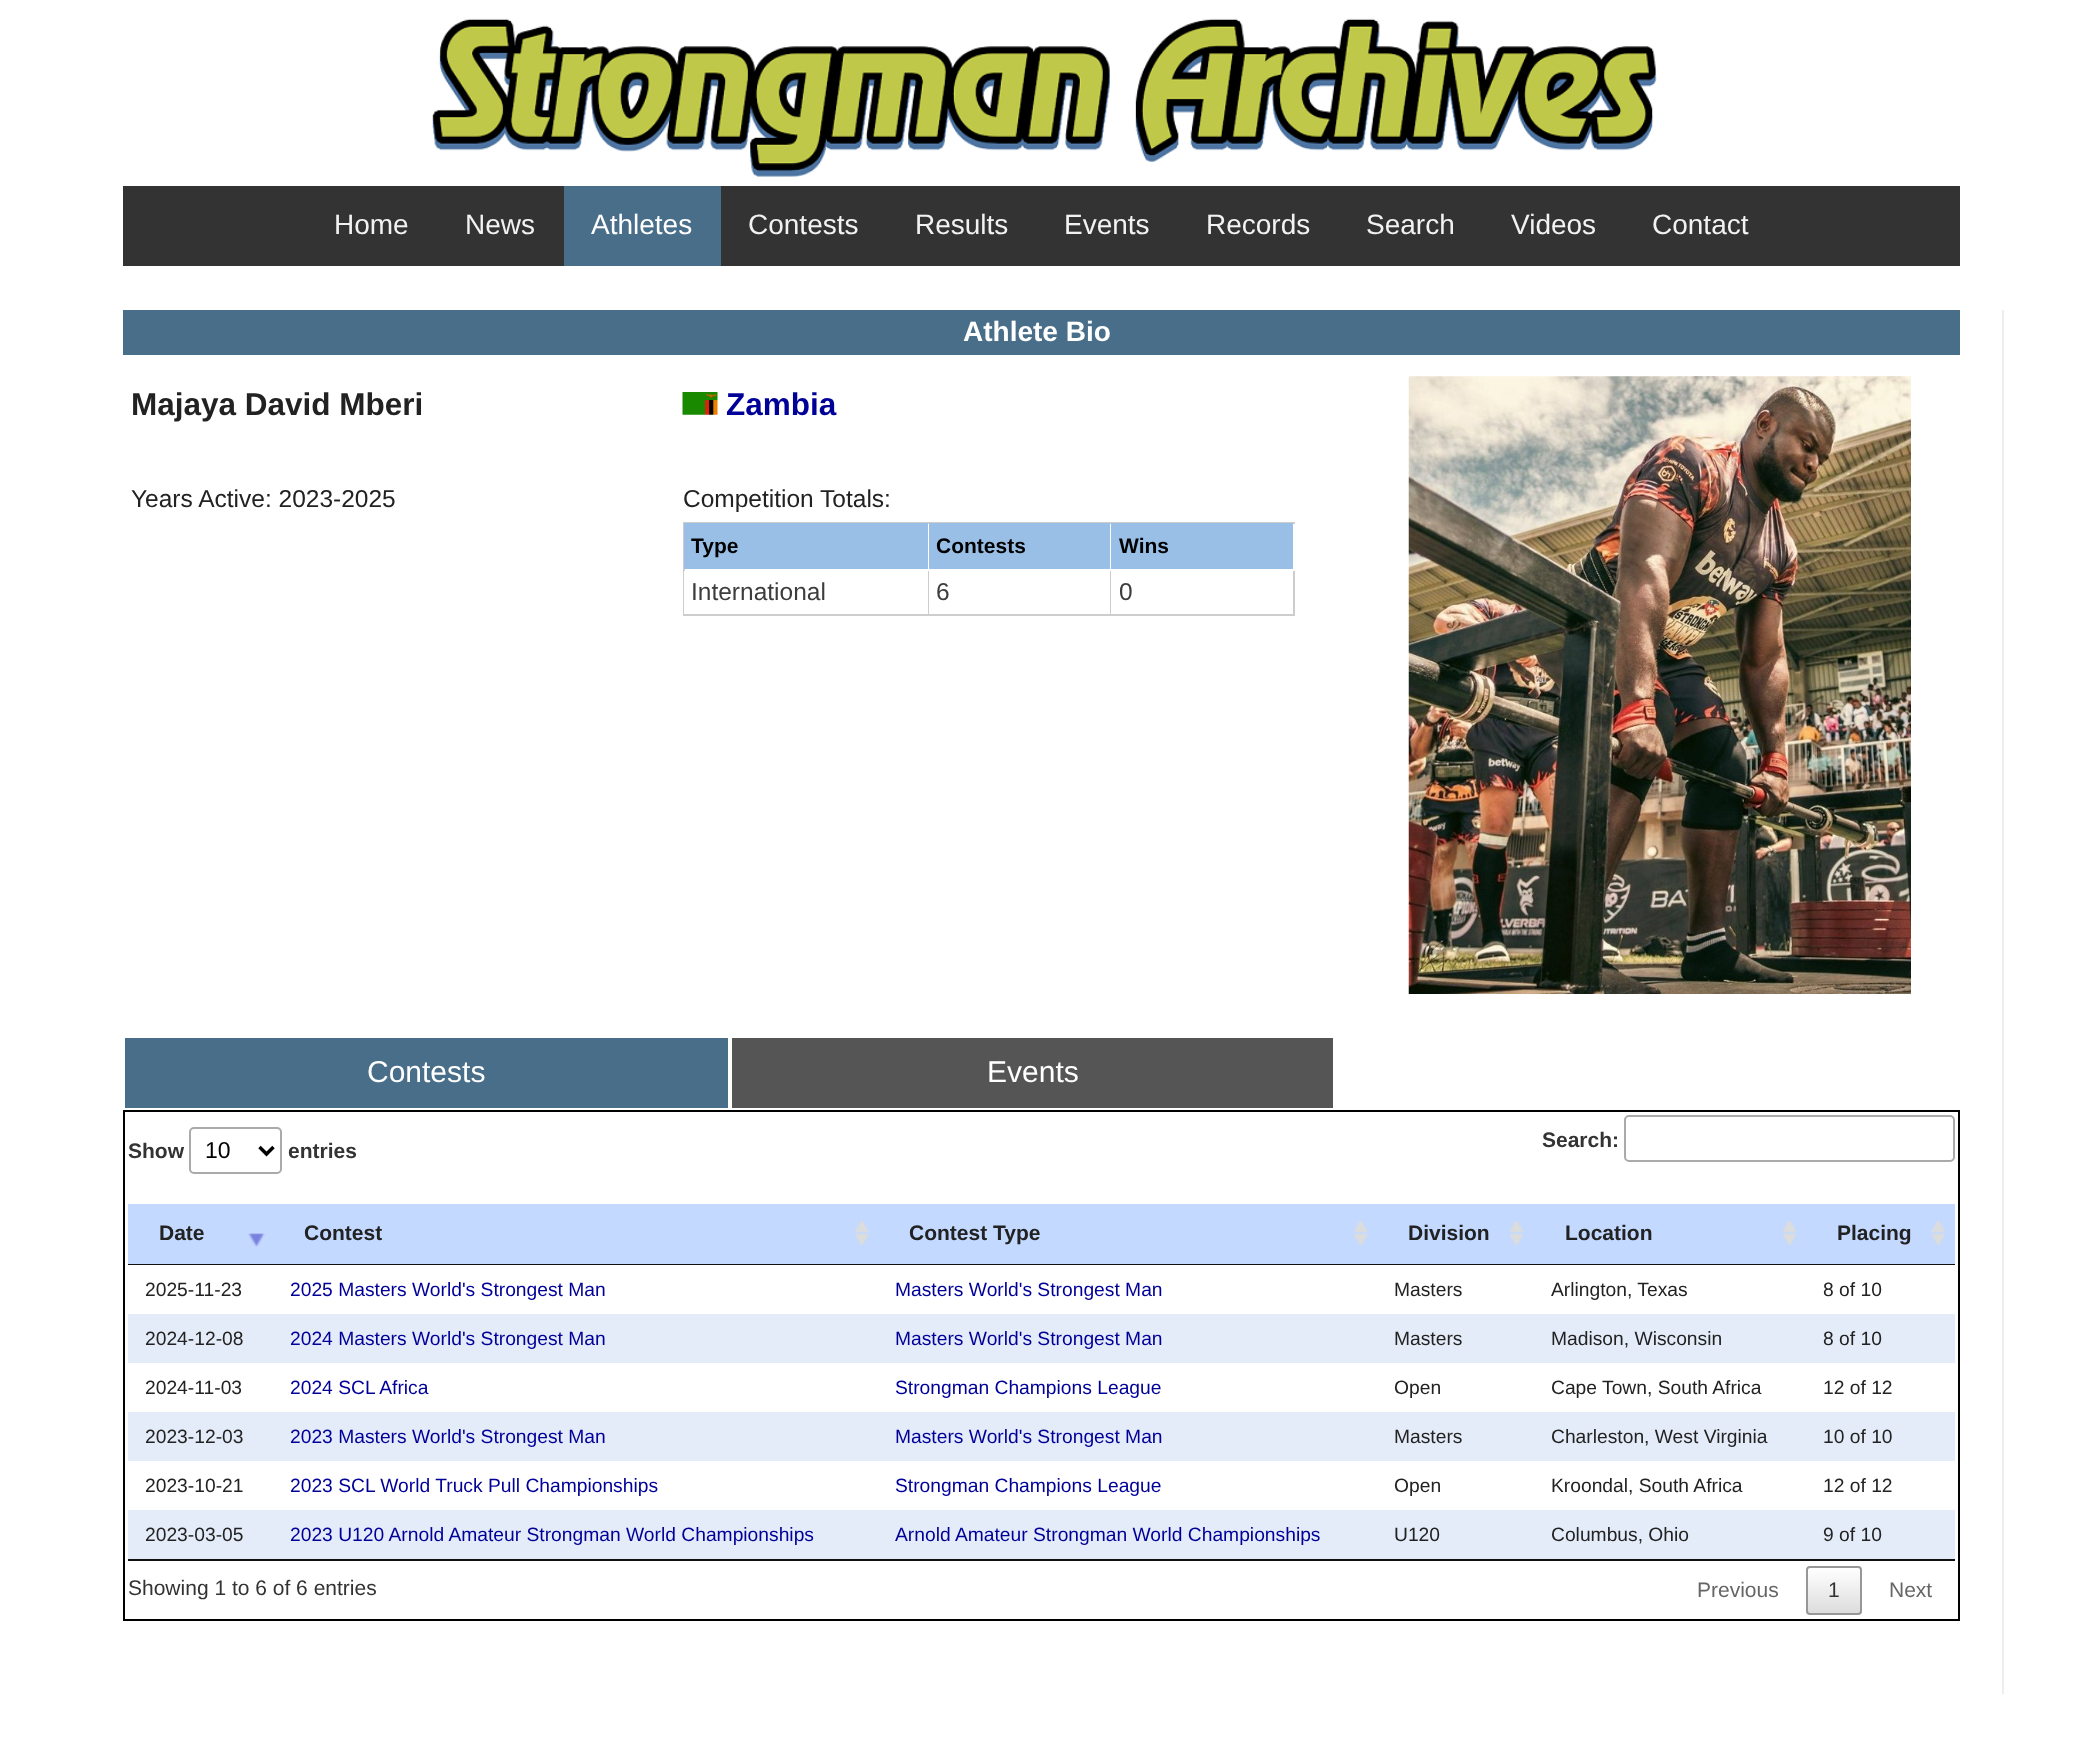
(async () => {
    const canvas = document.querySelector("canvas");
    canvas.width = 2082;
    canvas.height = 1746;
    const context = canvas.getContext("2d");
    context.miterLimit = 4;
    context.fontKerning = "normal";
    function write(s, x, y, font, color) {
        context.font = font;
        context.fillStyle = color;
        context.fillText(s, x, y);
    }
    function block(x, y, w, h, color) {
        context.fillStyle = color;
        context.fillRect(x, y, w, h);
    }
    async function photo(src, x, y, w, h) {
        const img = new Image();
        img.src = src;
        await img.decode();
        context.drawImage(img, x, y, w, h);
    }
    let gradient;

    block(0, 0, 2082, 1746, "rgb(255, 255, 255)");
    await photo("media/1.png", 432, 18, 1225, 159);
    block(123, 186, 1837, 80, "rgb(51, 51, 51)");
    write("Home", 334, 234, "28px Liberation Sans", "rgb(242, 242, 242)");
    write("News", 465, 234, "28px Liberation Sans", "rgb(242, 242, 242)");
    block(564, 186, 157, 80, "rgb(73, 110, 137)");
    write("Athletes", 591, 234, "28px Liberation Sans", "rgb(255, 255, 255)");
    write("Contests", 748, 234, "28px Liberation Sans", "rgb(242, 242, 242)");
    write("Results", 915, 234, "28px Liberation Sans", "rgb(242, 242, 242)");
    write("Events", 1064, 234, "28px Liberation Sans", "rgb(242, 242, 242)");
    write("Records", 1206, 234, "28px Liberation Sans", "rgb(242, 242, 242)");
    write("Search", 1366, 234, "28px Liberation Sans", "rgb(242, 242, 242)");
    write("Videos", 1511, 234, "28px Liberation Sans", "rgb(242, 242, 242)");
    write("Contact", 1652, 234, "28px Liberation Sans", "rgb(242, 242, 242)");
    block(2002, 310, 2, 1384, "rgb(238, 238, 238)");
    block(123, 310, 1837, 45, "rgb(73, 110, 137)");
    write("Athlete Bio", 963, 341, "bold 28px Liberation Sans", "rgb(255, 255, 255)");
    write("Majaya David Mberi", 131, 415, "bold 31.5px Liberation Sans", "rgb(34, 34, 34)");
    write("Years Active: 2023-2025", 131, 507, "24.5px Liberation Sans", "rgb(34, 34, 34)");
    await photo("media/2.png", 682, 392, 36, 23);
    write("Zambia", 726, 415, "bold 31.5px Liberation Sans", "rgb(0, 0, 153)");
    write("Competition Totals:", 683, 507, "24.5px Liberation Sans", "rgb(34, 34, 34)");
    block(683, 522, 612, 2, "rgb(205, 205, 205)");
    block(683, 522, 2, 94, "rgb(205, 205, 205)");
    block(684, 523, 244, 46, "rgb(153, 191, 230)");
    write("Type", 691, 553, "bold 21px Liberation Sans", "rgb(0, 0, 0)");
    block(929, 523, 181, 46, "rgb(153, 191, 230)");
    write("Contests", 936, 553, "bold 21px Liberation Sans", "rgb(0, 0, 0)");
    block(1111, 523, 182, 46, "rgb(153, 191, 230)");
    write("Wins", 1119, 553, "bold 21px Liberation Sans", "rgb(0, 0, 0)");
    block(684, 571, 1, 43, "rgb(255, 255, 255)");
    block(928, 571, 1, 45, "rgb(205, 205, 205)");
    block(684, 614, 245, 2, "rgb(205, 205, 205)");
    write("International", 691, 600, "24.5px Liberation Sans", "rgb(61, 61, 61)");
    block(1110, 571, 1, 45, "rgb(205, 205, 205)");
    block(929, 614, 182, 2, "rgb(205, 205, 205)");
    write("6", 936, 600, "24.5px Liberation Sans", "rgb(61, 61, 61)");
    block(1293, 571, 2, 45, "rgb(205, 205, 205)");
    block(1111, 614, 184, 2, "rgb(205, 205, 205)");
    write("0", 1119, 600, "24.5px Liberation Sans", "rgb(61, 61, 61)");
    await photo("media/3.png", 1408, 376, 503, 618);
    block(125, 1038, 603, 70, "rgb(73, 110, 137)");
    write("Contests", 367, 1082, "30px Liberation Sans", "rgb(255, 255, 255)");
    block(732, 1038, 601, 70, "rgb(85, 85, 85)");
    write("Events", 987, 1082, "30px Liberation Sans", "rgb(255, 255, 255)");
    context.strokeStyle = "rgb(0, 0, 0)";
    context.lineWidth = 2;
    context.strokeRect(124, 1111, 1835, 509);
    write("Show", 128, 1158, "bold 21px Liberation Sans", "rgb(51, 51, 51)");
    context.beginPath();
    context.roundRect(190, 1128, 91, 45, 4);
    context.strokeStyle = "rgb(170, 170, 170)";
    context.stroke();
    context.beginPath();
    context.moveTo(259.5, 1147);
    context.lineTo(266.5, 1154);
    context.lineTo(273.5, 1147);
    context.strokeStyle = "rgb(0, 0, 0)";
    context.lineWidth = 3.5;
    context.stroke();
    write("10", 205, 1158, "23px Liberation Sans", "rgb(0, 0, 0)");
    write("entries", 288, 1158, "bold 21px Liberation Sans", "rgb(51, 51, 51)");
    write("Search:", 1542, 1147, "bold 21px Liberation Sans", "rgb(51, 51, 51)");
    context.beginPath();
    context.roundRect(1625, 1116, 329, 45, 4);
    context.strokeStyle = "rgb(170, 170, 170)";
    context.lineWidth = 2;
    context.stroke();
    block(128, 1559, 1827, 2, "rgb(17, 17, 17)");
    block(128, 1204, 1827, 60, "rgb(195, 217, 255)");
    await photo("media/4.png", 248, 1233, 17, 14);
    block(128, 1264, 1827, 1, "rgb(17, 17, 17)");
    write("Date", 159, 1240, "bold 21px Liberation Sans", "rgb(34, 34, 34)");
    await photo("media/5.png", 854, 1219, 16, 28);
    write("Contest", 304, 1240, "bold 21px Liberation Sans", "rgb(34, 34, 34)");
    await photo("media/6.png", 1353, 1219, 16, 28);
    write("Contest Type", 909, 1240, "bold 21px Liberation Sans", "rgb(34, 34, 34)");
    await photo("media/7.png", 1508, 1219, 17, 28);
    write("Division", 1408, 1240, "bold 21px Liberation Sans", "rgb(34, 34, 34)");
    await photo("media/7.png", 1781, 1219, 17, 28);
    write("Location", 1565, 1240, "bold 21px Liberation Sans", "rgb(34, 34, 34)");
    await photo("media/8.png", 1930, 1219, 16, 27);
    write("Placing", 1837, 1240, "bold 21px Liberation Sans", "rgb(34, 34, 34)");
    write("2025-11-23", 145, 1296, "19.25px Liberation Sans", "rgb(34, 34, 34)");
    write("2025 Masters World's Strongest Man", 290, 1296, "19.25px Liberation Sans", "rgb(0, 0, 153)");
    write("Masters World's Strongest Man", 895, 1296, "19.25px Liberation Sans", "rgb(0, 0, 153)");
    write("Masters", 1394, 1296, "19.25px Liberation Sans", "rgb(34, 34, 34)");
    write("Arlington, Texas", 1551, 1296, "19.25px Liberation Sans", "rgb(34, 34, 34)");
    write("8 of 10", 1823, 1296, "19.25px Liberation Sans", "rgb(34, 34, 34)");
    block(128, 1314, 1827, 49, "rgb(229, 236, 249)");
    write("2024-12-08", 145, 1345, "19.25px Liberation Sans", "rgb(34, 34, 34)");
    write("2024 Masters World's Strongest Man", 290, 1345, "19.25px Liberation Sans", "rgb(0, 0, 153)");
    write("Masters World's Strongest Man", 895, 1345, "19.25px Liberation Sans", "rgb(0, 0, 153)");
    write("Masters", 1394, 1345, "19.25px Liberation Sans", "rgb(34, 34, 34)");
    write("Madison, Wisconsin", 1551, 1345, "19.25px Liberation Sans", "rgb(34, 34, 34)");
    write("8 of 10", 1823, 1345, "19.25px Liberation Sans", "rgb(34, 34, 34)");
    write("2024-11-03", 145, 1394, "19.25px Liberation Sans", "rgb(34, 34, 34)");
    write("2024 SCL Africa", 290, 1394, "19.25px Liberation Sans", "rgb(0, 0, 153)");
    write("Strongman Champions League", 895, 1394, "19.25px Liberation Sans", "rgb(0, 0, 153)");
    write("Open", 1394, 1394, "19.25px Liberation Sans", "rgb(34, 34, 34)");
    write("Cape Town, South Africa", 1551, 1394, "19.25px Liberation Sans", "rgb(34, 34, 34)");
    write("12 of 12", 1823, 1394, "19.25px Liberation Sans", "rgb(34, 34, 34)");
    block(128, 1412, 1827, 49, "rgb(229, 236, 249)");
    write("2023-12-03", 145, 1443, "19.25px Liberation Sans", "rgb(34, 34, 34)");
    write("2023 Masters World's Strongest Man", 290, 1443, "19.25px Liberation Sans", "rgb(0, 0, 153)");
    write("Masters World's Strongest Man", 895, 1443, "19.25px Liberation Sans", "rgb(0, 0, 153)");
    write("Masters", 1394, 1443, "19.25px Liberation Sans", "rgb(34, 34, 34)");
    write("Charleston, West Virginia", 1551, 1443, "19.25px Liberation Sans", "rgb(34, 34, 34)");
    write("10 of 10", 1823, 1443, "19.25px Liberation Sans", "rgb(34, 34, 34)");
    write("2023-10-21", 145, 1492, "19.25px Liberation Sans", "rgb(34, 34, 34)");
    write("2023 SCL World Truck Pull Championships", 290, 1492, "19.25px Liberation Sans", "rgb(0, 0, 153)");
    write("Strongman Champions League", 895, 1492, "19.25px Liberation Sans", "rgb(0, 0, 153)");
    write("Open", 1394, 1492, "19.25px Liberation Sans", "rgb(34, 34, 34)");
    write("Kroondal, South Africa", 1551, 1492, "19.25px Liberation Sans", "rgb(34, 34, 34)");
    write("12 of 12", 1823, 1492, "19.25px Liberation Sans", "rgb(34, 34, 34)");
    block(128, 1510, 1827, 49, "rgb(229, 236, 249)");
    write("2023-03-05", 145, 1541, "19.25px Liberation Sans", "rgb(34, 34, 34)");
    write("2023 U120 Arnold Amateur Strongman World Championships", 290, 1541, "19.25px Liberation Sans", "rgb(0, 0, 153)");
    write("Arnold Amateur Strongman World Championships", 895, 1541, "19.25px Liberation Sans", "rgb(0, 0, 153)");
    write("U120", 1394, 1541, "19.25px Liberation Sans", "rgb(34, 34, 34)");
    write("Columbus, Ohio", 1551, 1541, "19.25px Liberation Sans", "rgb(34, 34, 34)");
    write("9 of 10", 1823, 1541, "19.25px Liberation Sans", "rgb(34, 34, 34)");
    write("Showing 1 to 6 of 6 entries", 128, 1595, "21px Liberation Sans", "rgb(51, 51, 51)");
    write("Previous", 1697, 1597, "21px Liberation Sans", "rgb(102, 102, 102)");
    context.save();
    context.beginPath();
    context.roundRect(1806, 1566, 56, 49, 4);
    context.clip();
    gradient = context.createLinearGradient(1834, 1568, 1834, 1614);
    gradient.addColorStop(0, "rgb(255, 255, 255)");
    gradient.addColorStop(1, "rgb(220, 220, 220)");
    context.fillStyle = gradient;
    context.fillRect(1806, 1568, 56, 46);
    context.restore();
    context.beginPath();
    context.roundRect(1807, 1567, 54, 47, 3);
    context.strokeStyle = "rgb(151, 151, 151)";
    context.stroke();
    write("1", 1828, 1597, "21px Liberation Sans", "rgb(51, 51, 51)");
    write("Next", 1889, 1597, "21px Liberation Sans", "rgb(102, 102, 102)");
})();
